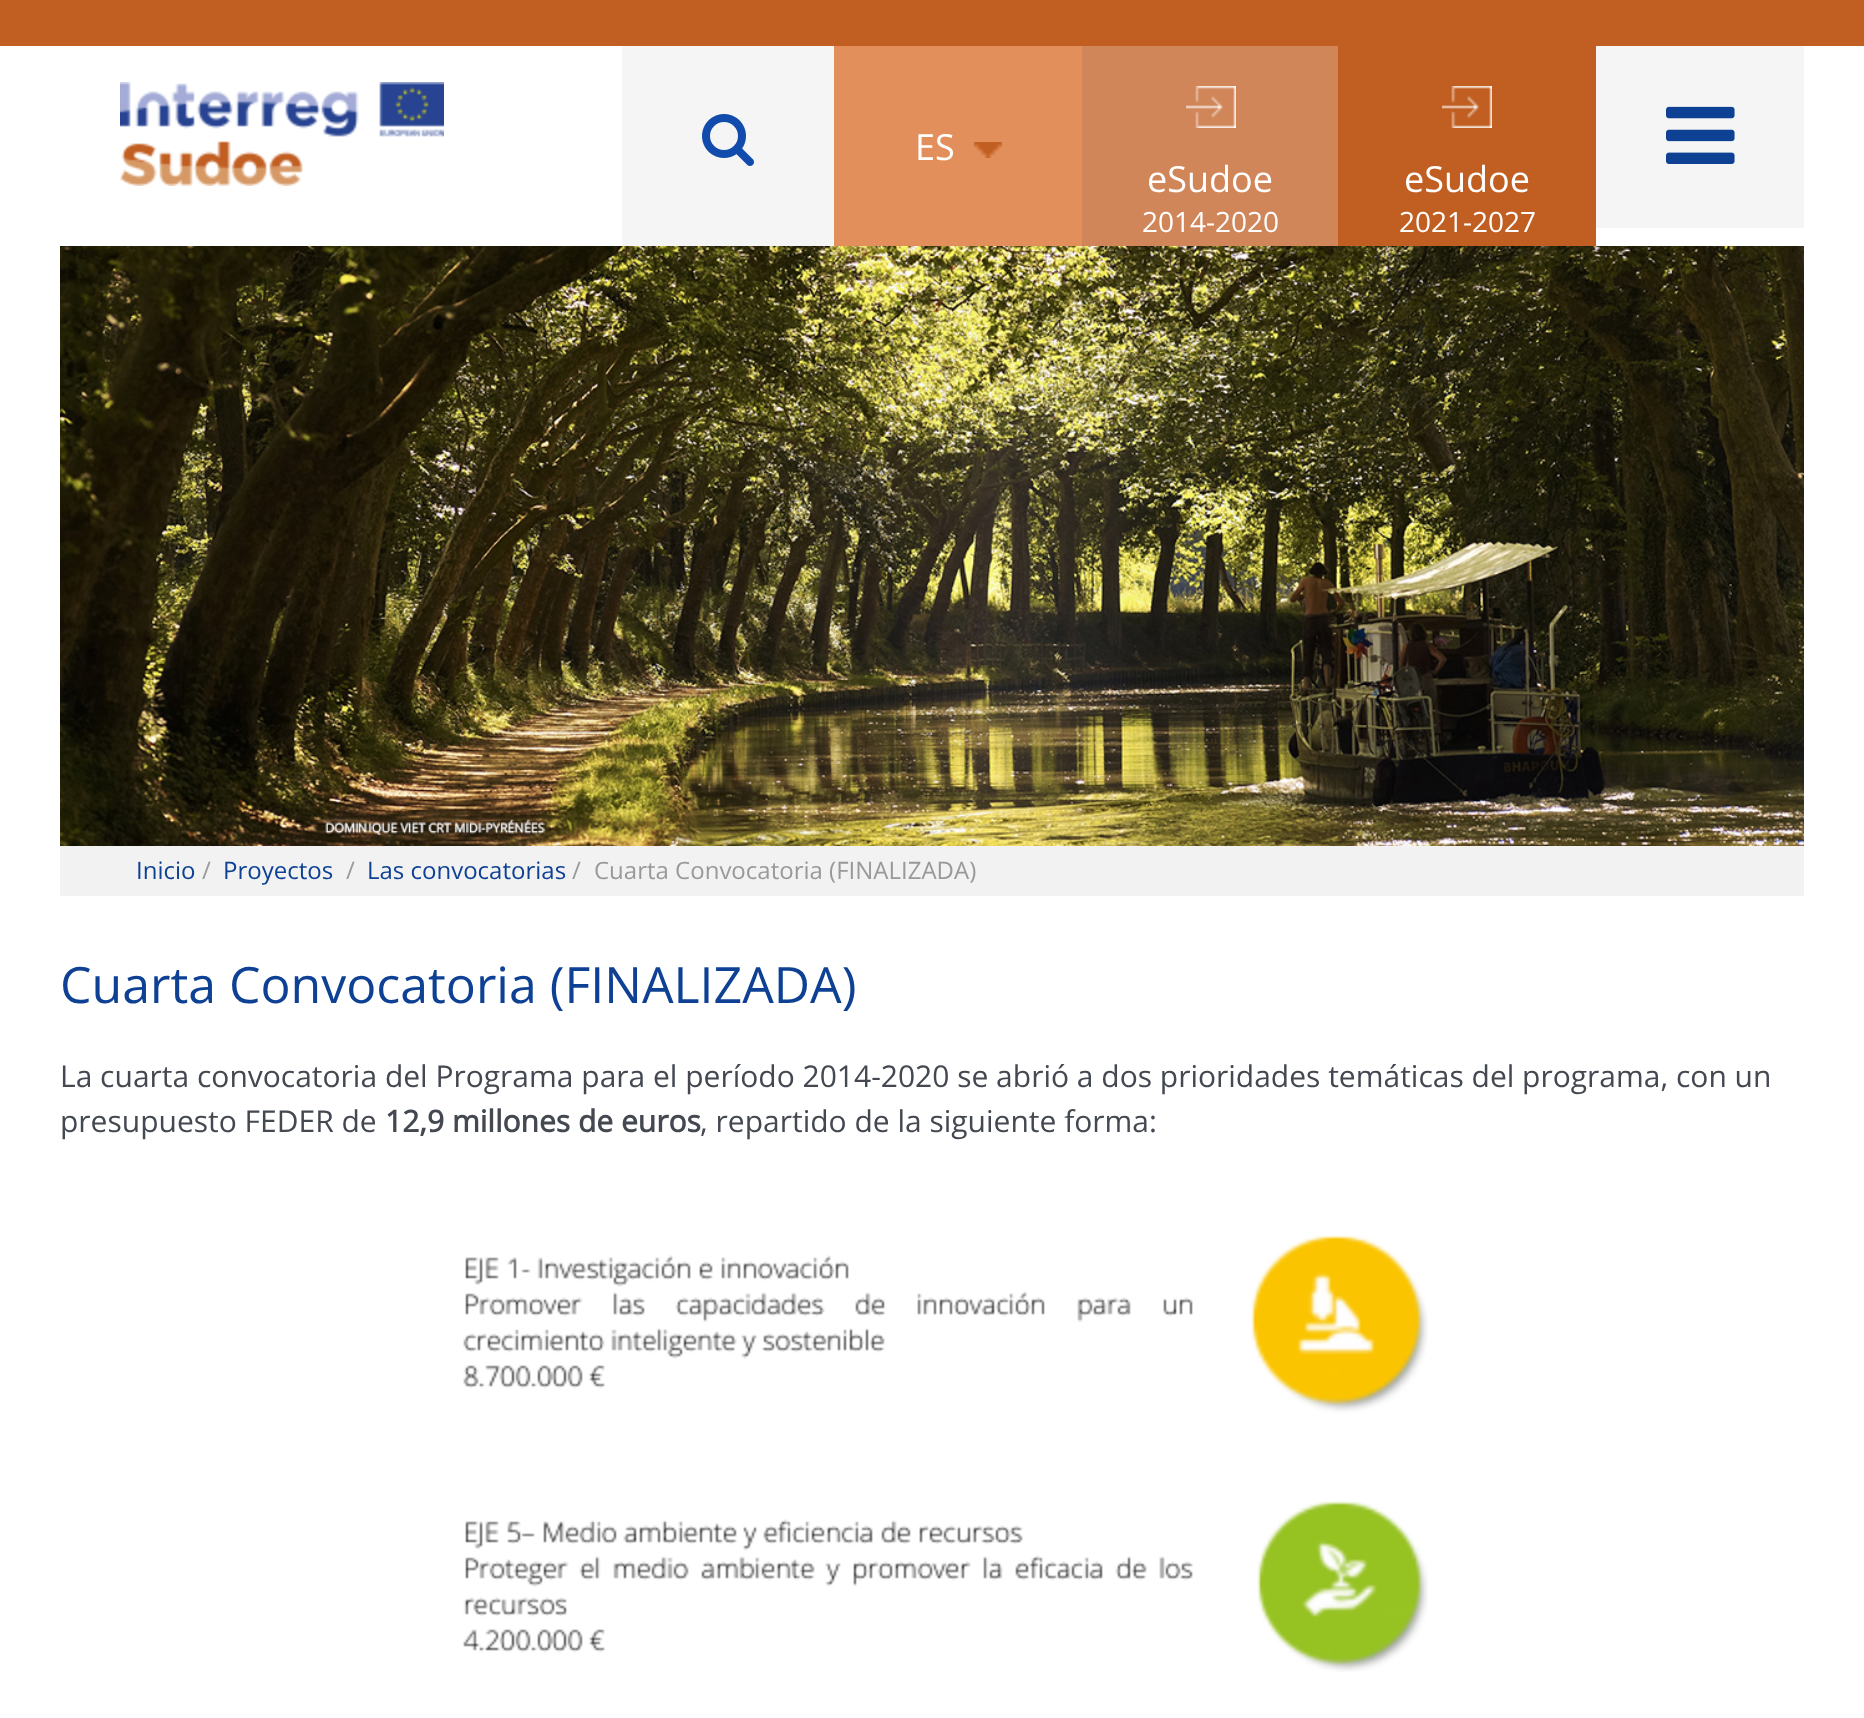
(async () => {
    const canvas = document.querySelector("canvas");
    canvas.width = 1864;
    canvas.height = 1718;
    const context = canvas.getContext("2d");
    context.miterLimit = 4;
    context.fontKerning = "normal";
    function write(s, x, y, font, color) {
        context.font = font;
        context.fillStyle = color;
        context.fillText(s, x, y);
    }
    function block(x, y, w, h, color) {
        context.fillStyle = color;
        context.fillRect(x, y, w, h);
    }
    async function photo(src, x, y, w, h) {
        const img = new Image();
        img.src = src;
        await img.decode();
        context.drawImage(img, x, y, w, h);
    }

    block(0, 0, 1864, 1718, "rgb(255, 255, 255)");
    block(0, 0, 1864, 46, "rgb(193, 94, 33)");
    await photo("media/1.png", 120, 82, 324, 104);
    block(622, 46, 212, 200, "rgb(245, 245, 245)");
    await photo("media/2.png", 702, 114, 52, 52);
    block(834, 46, 248, 200, "rgb(227, 143, 91)");
    write("ES", 915, 160, "36px Open Sans", "rgb(255, 255, 255)");
    await photo("media/3.png", 974, 142, 28, 16);
    block(1082, 46, 256, 200, "rgb(209, 134, 89)");
    await photo("media/4.png", 1186, 86, 50, 42);
    write("eSudoe", 1147, 192, "36px Open Sans", "rgb(255, 255, 255)");
    write("2014-2020", 1142, 232, "28px Open Sans", "rgb(255, 255, 255)");
    block(1338, 46, 258, 200, "rgb(193, 94, 33)");
    await photo("media/5.png", 1442, 86, 50, 42);
    write("eSudoe", 1404, 192, "36px Open Sans", "rgb(255, 255, 255)");
    write("2021-2027", 1399, 232, "28px Open Sans", "rgb(255, 255, 255)");
    block(1596, 46, 208, 182, "rgb(245, 245, 245)");
    await photo("media/6.png", 1666, 106, 69, 58);
    await photo("media/7.png", 60, 246, 1744, 600);
    block(60, 846, 1744, 50, "rgb(242, 242, 242)");
    write("Inicio", 136, 879, "24px Open Sans", "rgb(14, 65, 148)");
    write("/", 202, 879, "24px Open Sans", "rgb(153, 153, 153)");
    write("Proyectos", 223, 879, "24px Open Sans", "rgb(14, 65, 148)");
    write("/", 346, 879, "24px Open Sans", "rgb(153, 153, 153)");
    write("Las convocatorias", 367, 879, "24px Open Sans", "rgb(14, 65, 148)");
    write("/", 572, 879, "24px Open Sans", "rgb(153, 153, 153)");
    write("Cuarta Convocatoria (FINALIZADA)", 594, 879, "24px Open Sans", "rgb(153, 153, 153)");
    write("Cuarta Convocatoria (FINALIZADA)", 60, 1003, "50px Open Sans", "rgb(14, 65, 148)");
    write("La cuarta convocatoria del Programa para el período 2014-2020 se abrió a dos prioridades temáticas del programa, con un", 60, 1087, "30px Open Sans", "rgb(67, 72, 81)");
    write("presupuesto FEDER de", 60, 1132, "30px Open Sans", "rgb(67, 72, 81)");
    write("12,9 millones de euros", 385, 1132, "bold 30px Open Sans", "rgb(67, 72, 81)");
    write(", repartido de la siguiente forma:", 700, 1132, "30px Open Sans", "rgb(67, 72, 81)");
    await photo("media/8.png", 463, 1235, 965, 437);
})();
